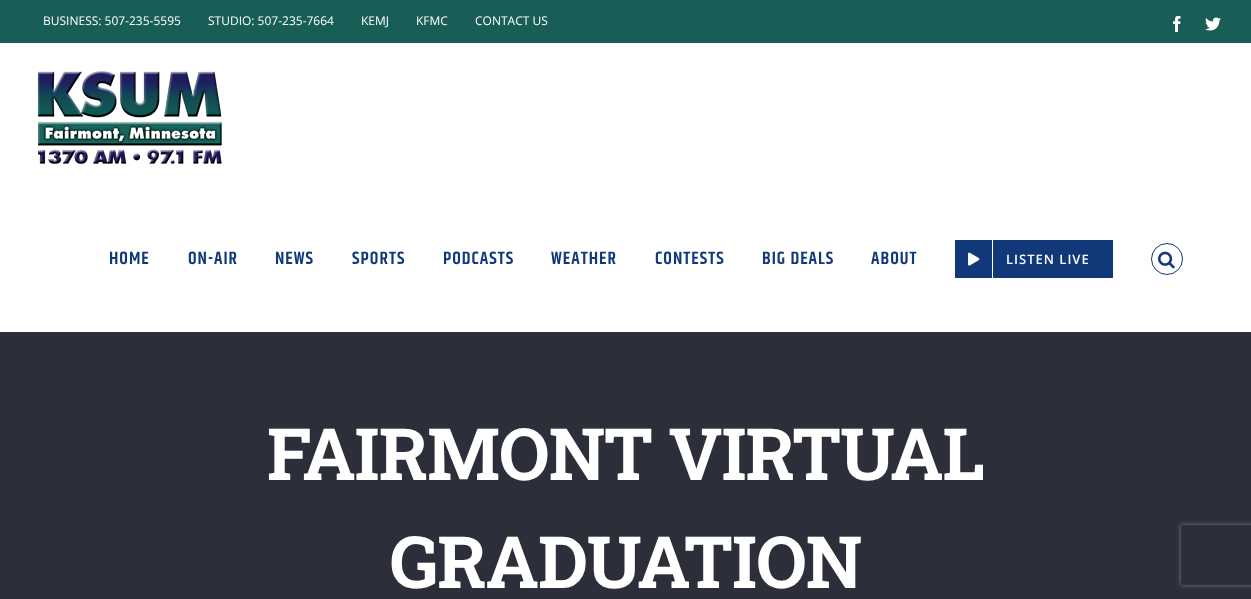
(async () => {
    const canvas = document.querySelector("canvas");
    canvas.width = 1251;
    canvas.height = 599;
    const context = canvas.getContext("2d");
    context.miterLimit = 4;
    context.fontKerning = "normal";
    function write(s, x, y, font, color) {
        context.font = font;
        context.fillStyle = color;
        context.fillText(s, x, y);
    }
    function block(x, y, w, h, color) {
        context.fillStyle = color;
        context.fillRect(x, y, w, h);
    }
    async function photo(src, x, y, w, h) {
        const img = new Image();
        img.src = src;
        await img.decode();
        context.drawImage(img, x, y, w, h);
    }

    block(0, 0, 1251, 599, "rgb(255, 255, 255)");
    block(0, 0, 1251, 43, "rgb(24, 94, 87)");
    write("BUSINESS: 507-235-5595", 43, 25, "12px Open Sans", "rgb(255, 255, 255)");
    write("STUDIO: 507-235-7664", 208, 25, "12px Open Sans", "rgb(255, 255, 255)");
    write("KEMJ", 361, 25, "12px Open Sans", "rgb(255, 255, 255)");
    write("KFMC", 416, 25, "12px Open Sans", "rgb(255, 255, 255)");
    write("CONTACT US", 475, 25, "12px Open Sans", "rgb(255, 255, 255)");
    await photo("media/1.png", 1173, 16, 8, 16);
    await photo("media/2.png", 1205, 17, 16, 14);
    await photo("media/3.png", 37, 71, 185, 93);
    context.letterSpacing = "1px";
    write("HOME", 109, 264, "600 18px Khand", "rgb(17, 56, 121)");
    write("ON-AIR", 188, 264, "600 18px Khand", "rgb(17, 56, 121)");
    write("NEWS", 275, 264, "600 18px Khand", "rgb(17, 56, 121)");
    write("SPORTS", 352, 264, "600 18px Khand", "rgb(17, 56, 121)");
    write("PODCASTS", 443, 264, "600 18px Khand", "rgb(17, 56, 121)");
    write("WEATHER", 551, 264, "600 18px Khand", "rgb(17, 56, 121)");
    write("CONTESTS", 655, 264, "600 18px Khand", "rgb(17, 56, 121)");
    write("BIG DEALS", 762, 264, "600 18px Khand", "rgb(17, 56, 121)");
    write("ABOUT", 871, 264, "600 18px Khand", "rgb(17, 56, 121)");
    block(955, 240, 158, 38, "rgb(17, 56, 121)");
    block(992, 240, 1, 38, "rgb(255, 255, 255)");
    await photo("media/4.png", 968, 252, 12, 14);
    write("LISTEN LIVE", 1006, 264, "600 13px Open Sans", "rgb(255, 255, 255)");
    context.beginPath();
    context.arc(1167, 259, 15.5, 0, Math.PI * 2);
    context.strokeStyle = "rgb(17, 56, 121)";
    context.stroke();
    await photo("media/5.png", 1158, 251, 17, 18);
    block(0, 332, 1251, 267, "rgb(44, 47, 57)");
    context.letterSpacing = "-1px";
    write("FAIRMONT VIRTUAL", 267, 480, "bold 72px Roboto Slab", "rgb(255, 255, 255)");
    write("GRADUATION", 390, 588, "bold 72px Roboto Slab", "rgb(255, 255, 255)");
    context.save();
    context.beginPath();
    context.moveTo(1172, 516);
    context.lineTo(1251, 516);
    context.lineTo(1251, 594);
    context.lineTo(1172, 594);
    context.closePath();
    context.moveTo(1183, 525);
    context.lineTo(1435, 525);
    context.bezierCurveTo(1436, 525, 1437, 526, 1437, 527);
    context.lineTo(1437, 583);
    context.bezierCurveTo(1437, 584, 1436, 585, 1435, 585);
    context.lineTo(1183, 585);
    context.bezierCurveTo(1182, 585, 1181, 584, 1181, 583);
    context.lineTo(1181, 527);
    context.bezierCurveTo(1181, 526, 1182, 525, 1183, 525);
    context.closePath();
    context.clip("evenodd");
    context.fillStyle = "rgb(128, 128, 128)";
    context.filter = "blur(2.5px)";
    context.beginPath();
    context.roundRect(1181, 525, 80, 60, 2);
    context.fill();
    context.filter = "none";
    context.restore();
})();
